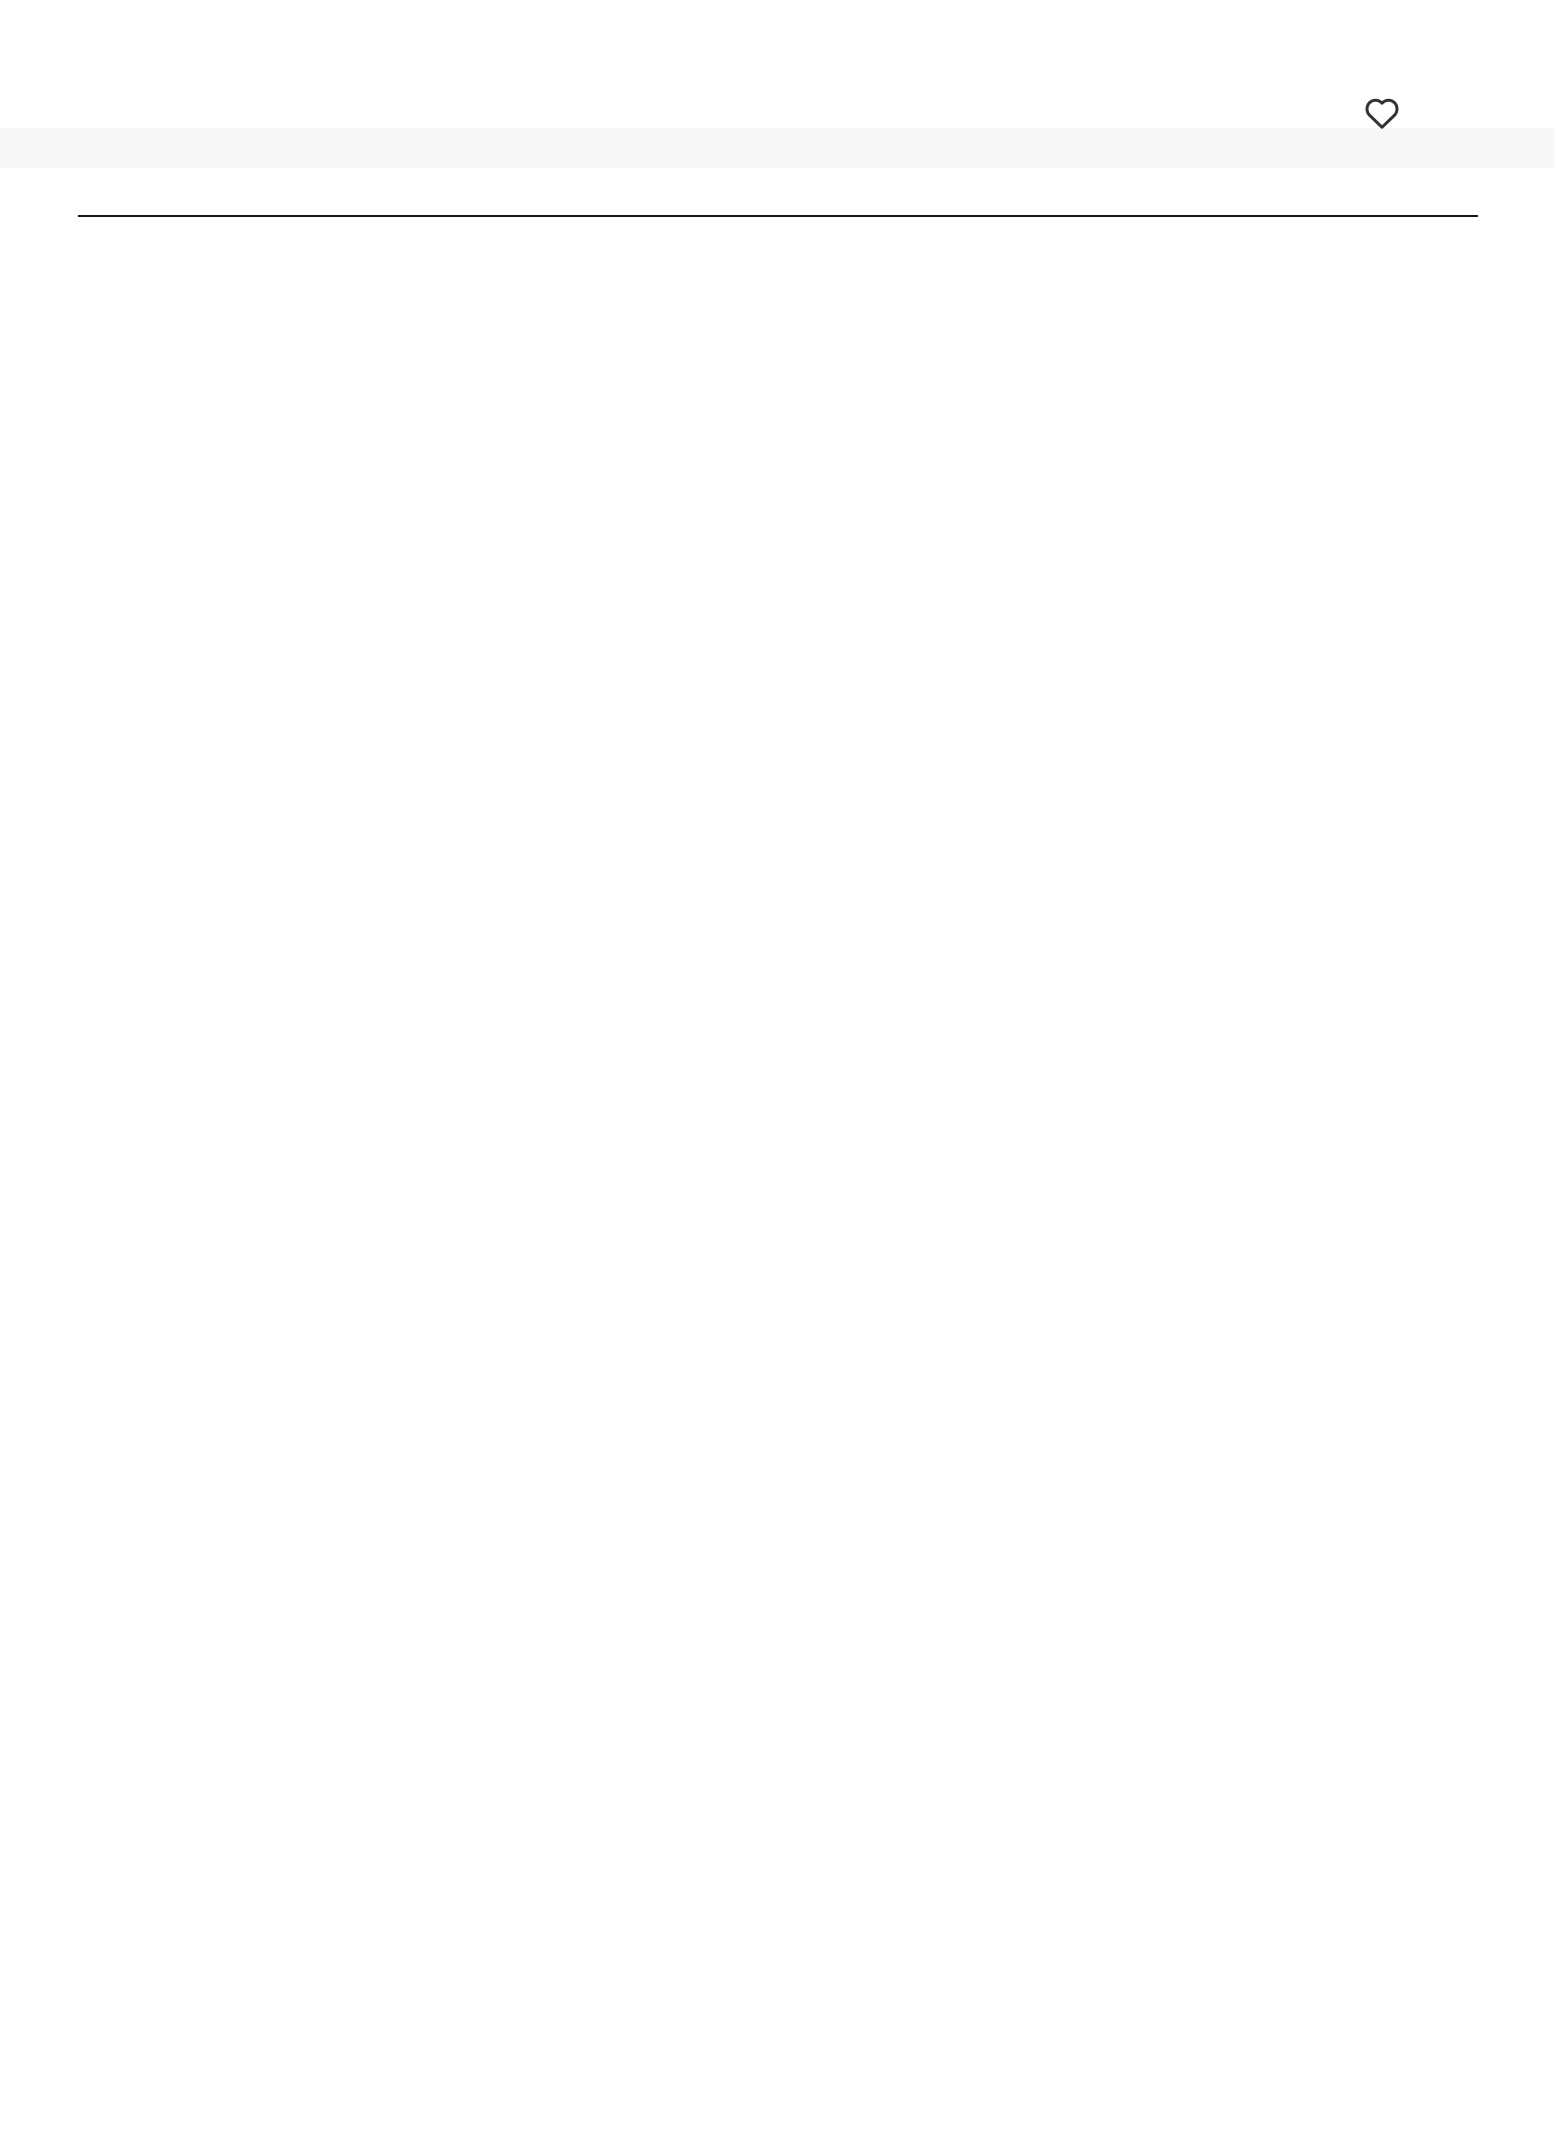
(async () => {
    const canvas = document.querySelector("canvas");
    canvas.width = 1555;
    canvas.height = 2145;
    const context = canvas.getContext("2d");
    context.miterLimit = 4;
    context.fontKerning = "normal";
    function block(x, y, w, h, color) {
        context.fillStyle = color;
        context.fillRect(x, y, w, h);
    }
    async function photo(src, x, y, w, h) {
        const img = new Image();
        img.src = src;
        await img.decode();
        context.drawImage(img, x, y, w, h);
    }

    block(0, 0, 1555, 2145, "rgb(255, 255, 255)");
    block(0, 128, 1555, 40, "rgb(248, 248, 247)");
    await photo("media/1.png", 1365, 98, 34, 31);
    block(78, 215, 1400, 2, "rgb(16, 24, 32)");
})();
